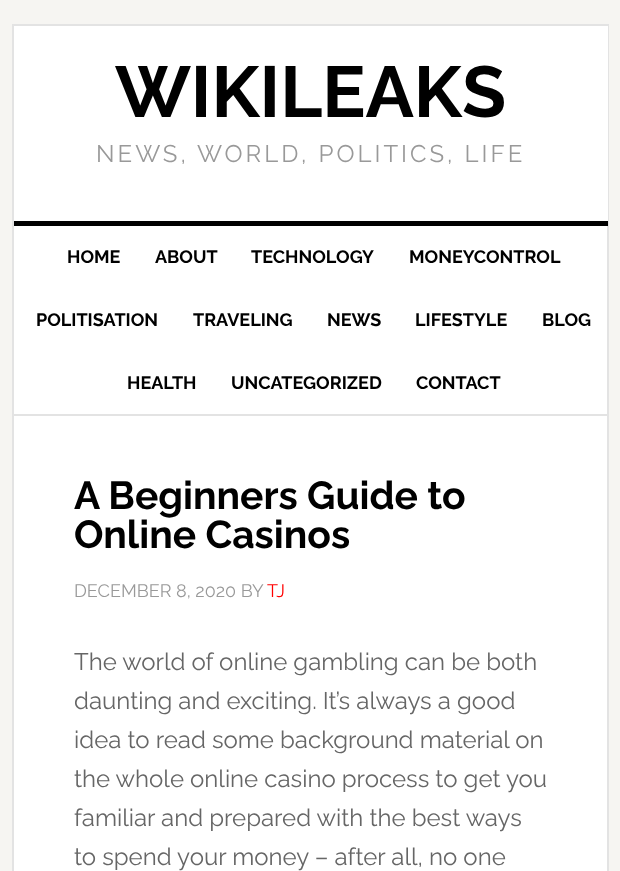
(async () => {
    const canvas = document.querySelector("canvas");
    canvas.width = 620;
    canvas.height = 871;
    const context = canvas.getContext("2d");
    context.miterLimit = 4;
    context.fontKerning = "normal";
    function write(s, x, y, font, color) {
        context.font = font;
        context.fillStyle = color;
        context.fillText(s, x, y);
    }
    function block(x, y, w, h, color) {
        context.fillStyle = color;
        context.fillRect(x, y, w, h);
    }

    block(0, 0, 620, 871, "rgb(246, 245, 242)");
    block(14, 226, 593, 645, "rgb(255, 255, 255)");
    context.strokeStyle = "rgb(227, 227, 227)";
    context.lineWidth = 2;
    context.strokeRect(13, 25, 595, 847);
    block(14, 26, 594, 195, "rgb(255, 255, 255)");
    block(14, 221, 594, 5, "rgb(0, 0, 0)");
    write("WIKILEAKS", 115, 117, "bold 72px Raleway", "rgb(0, 0, 0)");
    context.letterSpacing = "3px";
    write("NEWS, WORLD, POLITICS, LIFE", 96, 162, "24px Raleway", "rgb(153, 153, 153)");
    block(14, 414, 594, 2, "rgb(227, 227, 227)");
    context.letterSpacing = "0px";
    write("HOME", 67, 263, "bold 18px Raleway", "rgb(0, 0, 0)");
    write("ABOUT", 155, 263, "bold 18px Raleway", "rgb(0, 0, 0)");
    write("TECHNOLOGY", 251, 263, "bold 18px Raleway", "rgb(0, 0, 0)");
    write("MONEYCONTROL", 409, 263, "bold 18px Raleway", "rgb(0, 0, 0)");
    write("POLITISATION", 36, 326, "bold 18px Raleway", "rgb(0, 0, 0)");
    write("TRAVELING", 193, 326, "bold 18px Raleway", "rgb(0, 0, 0)");
    write("NEWS", 327, 326, "bold 18px Raleway", "rgb(0, 0, 0)");
    write("LIFESTYLE", 415, 326, "bold 18px Raleway", "rgb(0, 0, 0)");
    write("BLOG", 542, 326, "bold 18px Raleway", "rgb(0, 0, 0)");
    write("HEALTH", 127, 389, "bold 18px Raleway", "rgb(0, 0, 0)");
    write("UNCATEGORIZED", 231, 389, "bold 18px Raleway", "rgb(0, 0, 0)");
    write("CONTACT", 416, 389, "bold 18px Raleway", "rgb(0, 0, 0)");
    write("A Beginners Guide to", 74, 509, "bold 39px Raleway", "rgb(0, 0, 0)");
    write("Online Casinos", 74, 548, "bold 39px Raleway", "rgb(0, 0, 0)");
    write("DECEMBER 8, 2020 BY", 74, 597, "18px Raleway", "rgb(153, 153, 153)");
    write("TJ", 267, 597, "18px Raleway", "rgb(255, 0, 0)");
    write("The world of online gambling can be both", 74, 670, "24px Raleway", "rgb(102, 102, 102)");
    write("daunting and exciting. It’s always a good", 74, 709, "24px Raleway", "rgb(102, 102, 102)");
    write("idea to read some background material on", 74, 748, "24px Raleway", "rgb(102, 102, 102)");
    write("the whole online casino process to get you", 74, 787, "24px Raleway", "rgb(102, 102, 102)");
    write("familiar and prepared with the best ways", 74, 826, "24px Raleway", "rgb(102, 102, 102)");
    write("to spend your money – after all, no one", 74, 865, "24px Raleway", "rgb(102, 102, 102)");
})();
